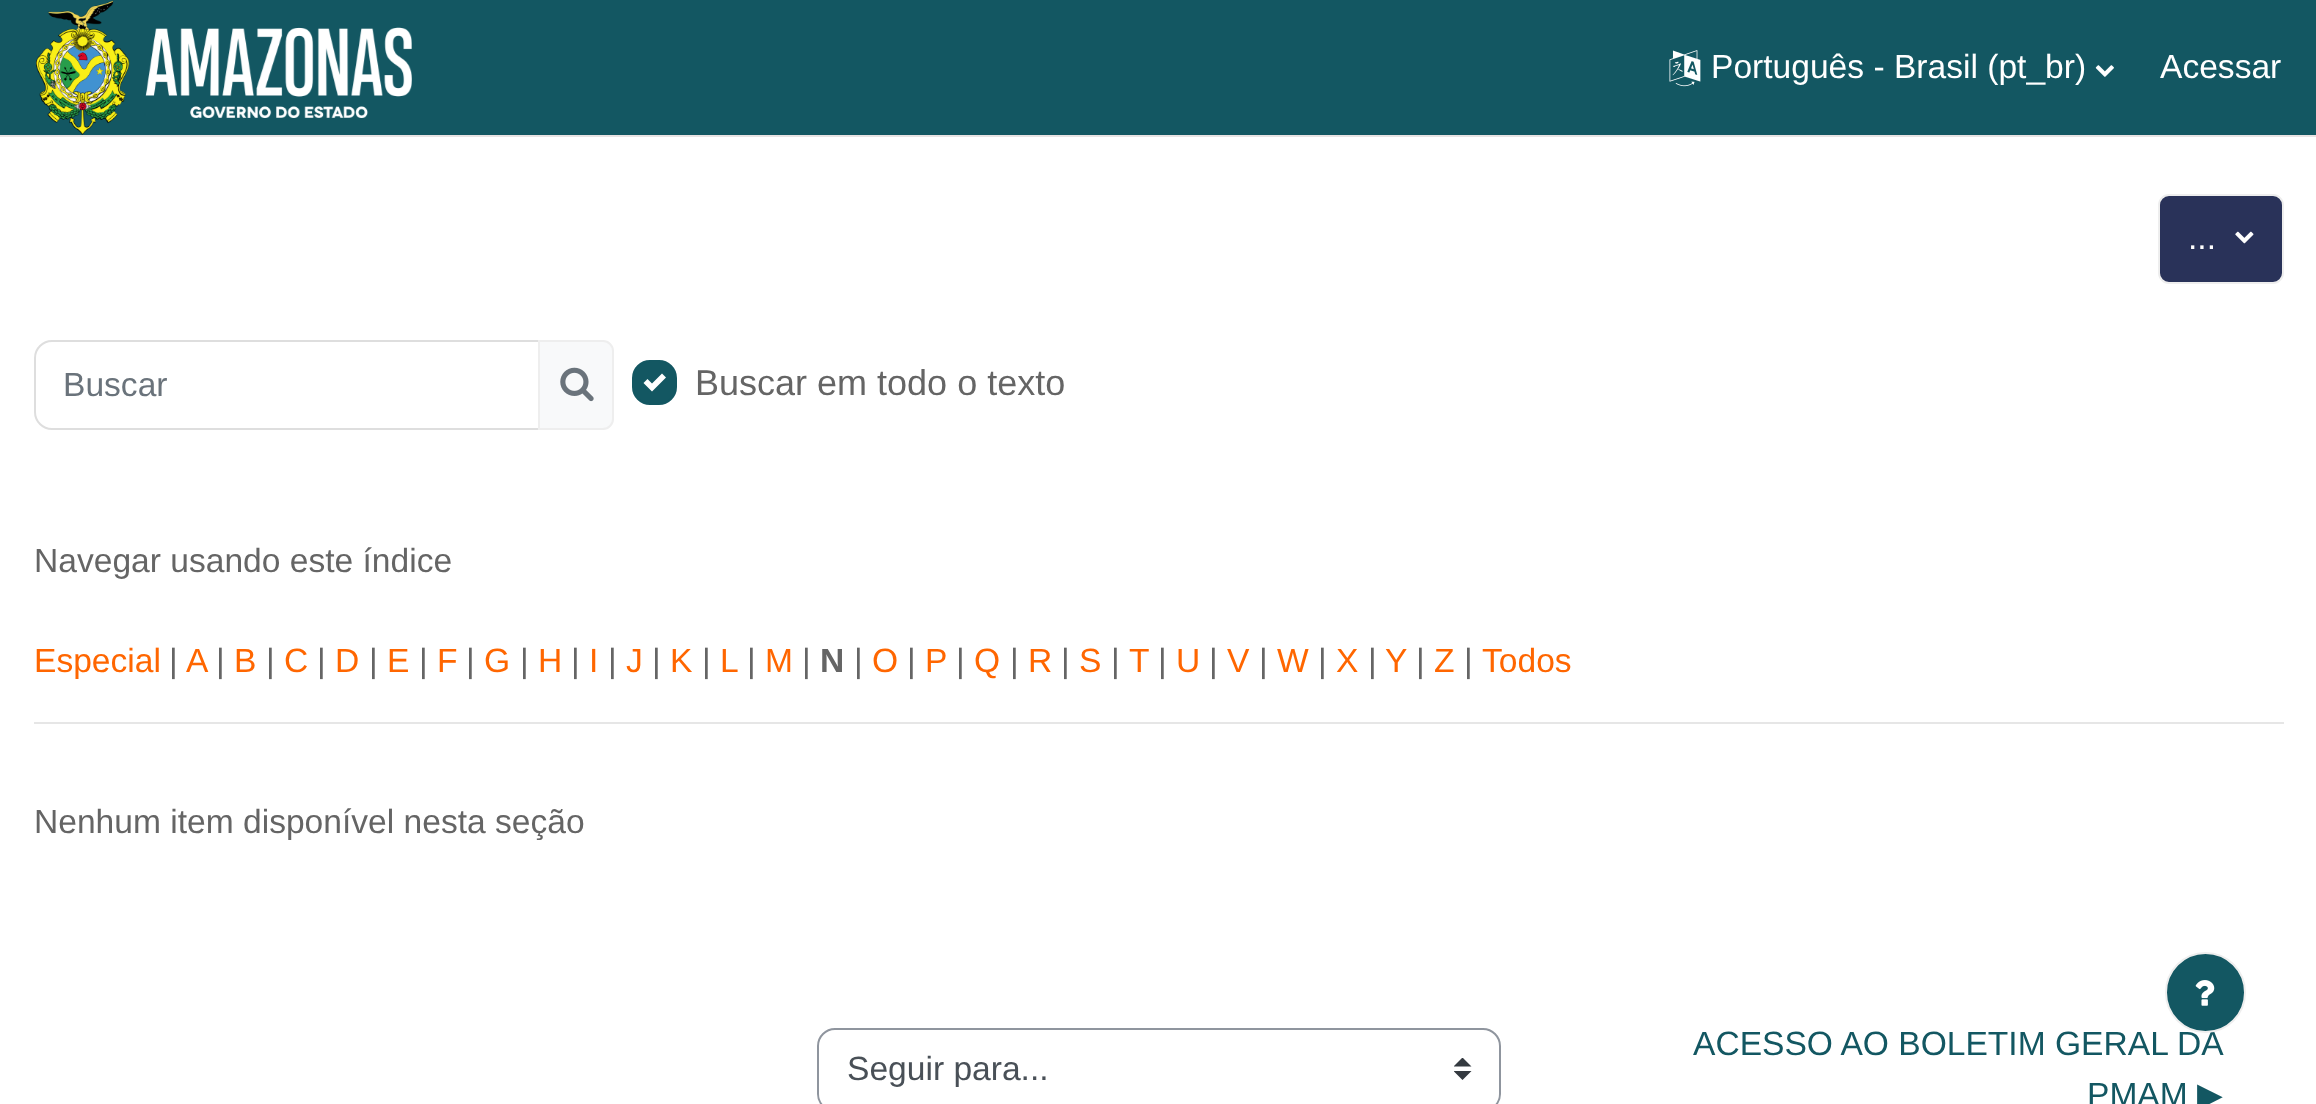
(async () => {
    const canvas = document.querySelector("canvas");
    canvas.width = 2316;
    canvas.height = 1104;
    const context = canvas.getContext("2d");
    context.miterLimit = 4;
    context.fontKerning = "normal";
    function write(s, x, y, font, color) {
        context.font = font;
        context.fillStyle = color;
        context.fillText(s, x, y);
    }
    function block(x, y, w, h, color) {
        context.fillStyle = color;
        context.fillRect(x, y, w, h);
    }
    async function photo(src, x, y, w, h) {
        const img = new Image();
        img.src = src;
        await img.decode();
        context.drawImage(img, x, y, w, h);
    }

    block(0, 0, 2316, 1104, "rgb(255, 255, 255)");
    block(0, 0, 2316, 135, "rgb(19, 87, 98)");
    block(0, 135, 2316, 2, "rgb(232, 227, 227)");
    await photo("media/1.png", 36, 0, 376, 135);
    await photo("media/2.png", 1669, 50, 32, 37);
    write("Português - Brasil (pt_br)", 1711, 78, "33.6px Liberation Sans", "rgb(255, 255, 255)");
    await photo("media/3.png", 2095, 65, 19, 12);
    write("Acessar", 2160, 78, "33.6px Liberation Sans", "rgb(255, 255, 255)");
    context.fillStyle = "rgb(41, 50, 89)";
    context.beginPath();
    context.roundRect(2159, 195, 124, 88, 10);
    context.fill();
    context.strokeStyle = "rgb(238, 238, 238)";
    context.lineWidth = 2;
    context.stroke();
    await photo("media/4.png", 2235, 231, 19, 13);
    write("...", 2188, 249, "33.6px Liberation Sans", "rgb(255, 255, 255)");
    context.beginPath();
    context.roundRect(35, 341, 504, 88, [17, 0, 0, 17]);
    context.strokeStyle = "rgb(222, 222, 222)";
    context.stroke();
    write("Buscar", 63, 396, "33.6px Liberation Sans", "rgb(106, 115, 123)");
    context.fillStyle = "rgb(248, 249, 250)";
    context.beginPath();
    context.roundRect(539, 341, 74, 88, [0, 10, 10, 0]);
    context.fill();
    context.strokeStyle = "rgb(238, 238, 238)";
    context.stroke();
    await photo("media/5.png", 560, 367, 34, 35);
    context.fillStyle = "rgb(19, 87, 98)";
    context.beginPath();
    context.roundRect(633, 361, 43, 43, 17);
    context.fill();
    context.strokeStyle = "rgb(19, 87, 98)";
    context.stroke();
    write("Buscar em todo o texto", 695, 395, "36px Liberation Sans", "rgb(101, 101, 101)");
    context.fillStyle = "rgb(255, 255, 255)";
    context.beginPath();
    context.moveTo(662, 373.5);
    context.lineTo(652, 383.5);
    context.lineTo(647.5, 379);
    context.lineTo(643.5, 383);
    context.lineTo(652, 391.5);
    context.lineTo(666, 377.5);
    context.closePath();
    context.fill();
    write("Navegar usando este índice", 34, 572, "33.6px Liberation Sans", "rgb(101, 101, 101)");
    write("Especial", 34, 672, "33.6px Liberation Sans", "rgb(255, 102, 0)");
    write("|", 169, 672, "33.6px Liberation Sans", "rgb(101, 101, 101)");
    write("A", 186, 672, "33.6px Liberation Sans", "rgb(255, 102, 0)");
    write("|", 216, 672, "33.6px Liberation Sans", "rgb(101, 101, 101)");
    write("B", 234, 672, "33.6px Liberation Sans", "rgb(255, 102, 0)");
    write("|", 266, 672, "33.6px Liberation Sans", "rgb(101, 101, 101)");
    write("C", 284, 672, "33.6px Liberation Sans", "rgb(255, 102, 0)");
    write("|", 317, 672, "33.6px Liberation Sans", "rgb(101, 101, 101)");
    write("D", 335, 672, "33.6px Liberation Sans", "rgb(255, 102, 0)");
    write("|", 369, 672, "33.6px Liberation Sans", "rgb(101, 101, 101)");
    write("E", 387, 672, "33.6px Liberation Sans", "rgb(255, 102, 0)");
    write("|", 419, 672, "33.6px Liberation Sans", "rgb(101, 101, 101)");
    write("F", 437, 672, "33.6px Liberation Sans", "rgb(255, 102, 0)");
    write("|", 466, 672, "33.6px Liberation Sans", "rgb(101, 101, 101)");
    write("G", 484, 672, "33.6px Liberation Sans", "rgb(255, 102, 0)");
    write("|", 520, 672, "33.6px Liberation Sans", "rgb(101, 101, 101)");
    write("H", 538, 672, "33.6px Liberation Sans", "rgb(255, 102, 0)");
    write("|", 571, 672, "33.6px Liberation Sans", "rgb(101, 101, 101)");
    write("I", 589, 672, "33.6px Liberation Sans", "rgb(255, 102, 0)");
    write("|", 608, 672, "33.6px Liberation Sans", "rgb(101, 101, 101)");
    write("J", 626, 672, "33.6px Liberation Sans", "rgb(255, 102, 0)");
    write("|", 652, 672, "33.6px Liberation Sans", "rgb(101, 101, 101)");
    write("K", 670, 672, "33.6px Liberation Sans", "rgb(255, 102, 0)");
    write("|", 702, 672, "33.6px Liberation Sans", "rgb(101, 101, 101)");
    write("L", 720, 672, "33.6px Liberation Sans", "rgb(255, 102, 0)");
    write("|", 747, 672, "33.6px Liberation Sans", "rgb(101, 101, 101)");
    write("M", 765, 672, "33.6px Liberation Sans", "rgb(255, 102, 0)");
    write("|", 802, 672, "33.6px Liberation Sans", "rgb(101, 101, 101)");
    write("N", 820, 672, "bold 33.6px Liberation Sans", "rgb(101, 101, 101)");
    write("|", 854, 672, "33.6px Liberation Sans", "rgb(101, 101, 101)");
    write("O", 872, 672, "33.6px Liberation Sans", "rgb(255, 102, 0)");
    write("|", 907, 672, "33.6px Liberation Sans", "rgb(101, 101, 101)");
    write("P", 925, 672, "33.6px Liberation Sans", "rgb(255, 102, 0)");
    write("|", 956, 672, "33.6px Liberation Sans", "rgb(101, 101, 101)");
    write("Q", 974, 672, "33.6px Liberation Sans", "rgb(255, 102, 0)");
    write("|", 1010, 672, "33.6px Liberation Sans", "rgb(101, 101, 101)");
    write("R", 1028, 672, "33.6px Liberation Sans", "rgb(255, 102, 0)");
    write("|", 1061, 672, "33.6px Liberation Sans", "rgb(101, 101, 101)");
    write("S", 1079, 672, "33.6px Liberation Sans", "rgb(255, 102, 0)");
    write("|", 1111, 672, "33.6px Liberation Sans", "rgb(101, 101, 101)");
    write("T", 1129, 672, "33.6px Liberation Sans", "rgb(255, 102, 0)");
    write("|", 1158, 672, "33.6px Liberation Sans", "rgb(101, 101, 101)");
    write("U", 1176, 672, "33.6px Liberation Sans", "rgb(255, 102, 0)");
    write("|", 1209, 672, "33.6px Liberation Sans", "rgb(101, 101, 101)");
    write("V", 1227, 672, "33.6px Liberation Sans", "rgb(255, 102, 0)");
    write("|", 1259, 672, "33.6px Liberation Sans", "rgb(101, 101, 101)");
    write("W", 1277, 672, "33.6px Liberation Sans", "rgb(255, 102, 0)");
    write("|", 1318, 672, "33.6px Liberation Sans", "rgb(101, 101, 101)");
    write("X", 1336, 672, "33.6px Liberation Sans", "rgb(255, 102, 0)");
    write("|", 1368, 672, "33.6px Liberation Sans", "rgb(101, 101, 101)");
    write("Y", 1385, 672, "33.6px Liberation Sans", "rgb(255, 102, 0)");
    write("|", 1416, 672, "33.6px Liberation Sans", "rgb(101, 101, 101)");
    write("Z", 1434, 672, "33.6px Liberation Sans", "rgb(255, 102, 0)");
    write("|", 1464, 672, "33.6px Liberation Sans", "rgb(101, 101, 101)");
    write("Todos", 1482, 672, "33.6px Liberation Sans", "rgb(255, 102, 0)");
    block(34, 722, 2250, 2, "rgb(230, 230, 230)");
    write("Nenhum item disponível nesta seção", 34, 833, "33.6px Liberation Sans", "rgb(101, 101, 101)");
    context.save();
    context.beginPath();
    context.rect(1454, 1058, 18, 22);
    context.clip();
    context.fillStyle = "rgb(52, 58, 64)";
    context.beginPath();
    context.moveTo(1462.5, 1057.5);
    context.lineTo(1453.5, 1066.5);
    context.lineTo(1471.5, 1066.5);
    context.closePath();
    context.moveTo(1462.5, 1080);
    context.lineTo(1453.5, 1071);
    context.lineTo(1471.5, 1071);
    context.closePath();
    context.fill();
    context.restore();
    context.beginPath();
    context.roundRect(818, 1029, 682, 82, 17);
    context.strokeStyle = "rgb(143, 149, 158)";
    context.stroke();
    write("Seguir para...", 847, 1080, "33.6px Liberation Sans", "rgb(73, 80, 87)");
    write("ACESSO AO BOLETIM GERAL DA", 1693, 1055, "33.6px Liberation Sans", "rgb(19, 87, 98)");
    write("PMAM", 2087, 1106, "33.6px Liberation Sans", "rgb(19, 87, 98)");
    write("▶︎", 2197, 1106, "33.6px DejaVu Sans", "rgb(19, 87, 98)");
    context.beginPath();
    context.arc(2205.5, 992.5, 39.5, 0, Math.PI * 2);
    context.fill();
    context.strokeStyle = "rgb(238, 238, 238)";
    context.stroke();
    await photo("media/6.png", 2195, 980, 20, 26);
})();
